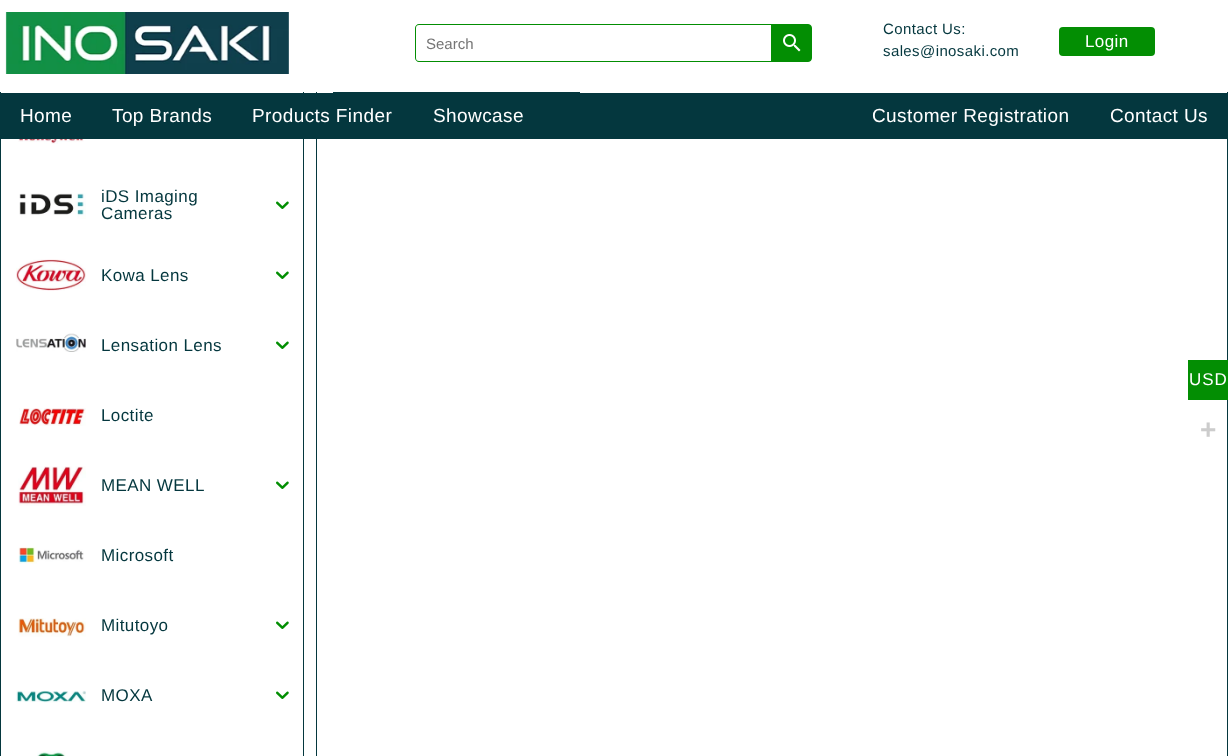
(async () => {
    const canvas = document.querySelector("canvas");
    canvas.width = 1228;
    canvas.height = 756;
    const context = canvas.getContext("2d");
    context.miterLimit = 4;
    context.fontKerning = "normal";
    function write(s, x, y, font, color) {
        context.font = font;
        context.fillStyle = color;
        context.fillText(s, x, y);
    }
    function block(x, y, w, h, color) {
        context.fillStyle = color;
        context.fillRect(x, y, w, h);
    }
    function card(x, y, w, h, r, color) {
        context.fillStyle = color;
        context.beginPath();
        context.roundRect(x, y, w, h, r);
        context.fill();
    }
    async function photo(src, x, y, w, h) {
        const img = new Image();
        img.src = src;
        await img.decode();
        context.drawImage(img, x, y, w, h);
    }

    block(0, 0, 1228, 756, "rgb(255, 255, 255)");
    context.strokeStyle = "rgb(4, 55, 62)";
    context.strokeRect(0.5, -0.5, 303, 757);
    context.strokeRect(316.5, -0.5, 911, 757);
    block(0, 0, 1228, 92, "rgb(255, 255, 255)");
    await photo("media/1.png", 5, 12, 284, 62);
    context.fillStyle = "rgb(3, 142, 3)";
    context.beginPath();
    context.roundRect(770.5, 24.5, 41, 37, [0, 3.5, 3.5, 0]);
    context.fill();
    context.strokeStyle = "rgb(3, 142, 3)";
    context.stroke();
    context.fillStyle = "rgb(255, 255, 255)";
    context.beginPath();
    context.roundRect(415, 24, 356, 38, [4, 0, 0, 4]);
    context.fill();
    context.fillStyle = "rgb(3, 142, 3)";
    context.beginPath();
    context.moveTo(419, 24);
    context.lineTo(771, 24);
    context.lineTo(771, 62);
    context.lineTo(419, 62);
    context.bezierCurveTo(417, 62, 415, 60, 415, 58);
    context.lineTo(415, 28);
    context.bezierCurveTo(415, 26, 417, 24, 419, 24);
    context.closePath();
    context.moveTo(419, 25);
    context.lineTo(771, 25);
    context.lineTo(771, 61);
    context.lineTo(419, 61);
    context.bezierCurveTo(417, 61, 416, 60, 416, 58);
    context.lineTo(416, 28);
    context.bezierCurveTo(416, 26, 417, 25, 419, 25);
    context.closePath();
    context.fill("evenodd");
    write("Search", 426, 49, "15px Liberation Sans", "rgb(117, 117, 117)");
    await photo("media/2.png", 783, 34, 18, 18);
    context.letterSpacing = "0.4px";
    write("Contact Us:", 883, 34, "15px Liberation Sans", "rgb(4, 55, 62)");
    write("sales@inosaki.com", 883, 56, "15px Liberation Sans", "rgb(4, 55, 62)");
    card(1059, 27, 96, 29, 4, "rgb(3, 142, 3)");
    write("Login", 1085, 47, "17px Liberation Sans", "rgb(255, 255, 255)");
    block(1, 93, 1226, 46, "rgb(4, 55, 62)");
    write("Home", 20, 122, "19px Liberation Sans", "rgb(255, 255, 255)");
    write("Top Brands", 112, 122, "19px Liberation Sans", "rgb(255, 255, 255)");
    write("Products Finder", 252, 122, "19px Liberation Sans", "rgb(255, 255, 255)");
    write("Showcase", 433, 122, "19px Liberation Sans", "rgb(255, 255, 255)");
    write("Customer Registration", 872, 122, "19px Liberation Sans", "rgb(255, 255, 255)");
    write("Contact Us", 1110, 122, "19px Liberation Sans", "rgb(255, 255, 255)");
    await photo("media/3.png", 18, 139, 66, 5);
    await photo("media/4.png", 19, 193, 67, 26);
    write("iDS Imaging", 101, 202, "17px Liberation Sans", "rgb(4, 55, 62)");
    write("Cameras", 101, 219, "17px Liberation Sans", "rgb(4, 55, 62)");
    await photo("media/5.png", 276, 201, 13, 8);
    await photo("media/6.png", 16, 259, 70, 32);
    write("Kowa Lens", 101, 281, "17px Liberation Sans", "rgb(4, 55, 62)");
    await photo("media/5.png", 276, 271, 13, 8);
    await photo("media/7.png", 16, 333, 70, 19);
    write("Lensation Lens", 101, 351, "17px Liberation Sans", "rgb(4, 55, 62)");
    await photo("media/5.png", 276, 341, 13, 8);
    await photo("media/8.png", 19, 408, 67, 18);
    write("Loctite", 101, 421, "17px Liberation Sans", "rgb(4, 55, 62)");
    await photo("media/9.png", 18, 466, 68, 40);
    write("MEAN WELL", 101, 491, "17px Liberation Sans", "rgb(4, 55, 62)");
    await photo("media/5.png", 276, 481, 13, 8);
    await photo("media/10.png", 18, 547, 66, 17);
    write("Microsoft", 101, 561, "17px Liberation Sans", "rgb(4, 55, 62)");
    await photo("media/11.png", 18, 618, 68, 19);
    write("Mitutoyo", 101, 631, "17px Liberation Sans", "rgb(4, 55, 62)");
    await photo("media/5.png", 276, 621, 13, 8);
    await photo("media/12.png", 16, 690, 70, 13);
    write("MOXA", 101, 701, "17px Liberation Sans", "rgb(4, 55, 62)");
    await photo("media/5.png", 276, 691, 13, 8);
    await photo("media/13.png", 37, 751, 29, 5);
    block(333, 92, 247, 1, "rgb(4, 55, 62)");
    block(1188, 360, 40, 40, "rgb(3, 142, 3)");
    context.letterSpacing = "1px";
    write("USD", 1189, 385, "17px Liberation Sans", "rgb(255, 255, 255)");
    context.letterSpacing = "0.4px";
    write("+", 1200, 439, "bold 28px Liberation Sans", "rgb(204, 204, 204)");
})();
